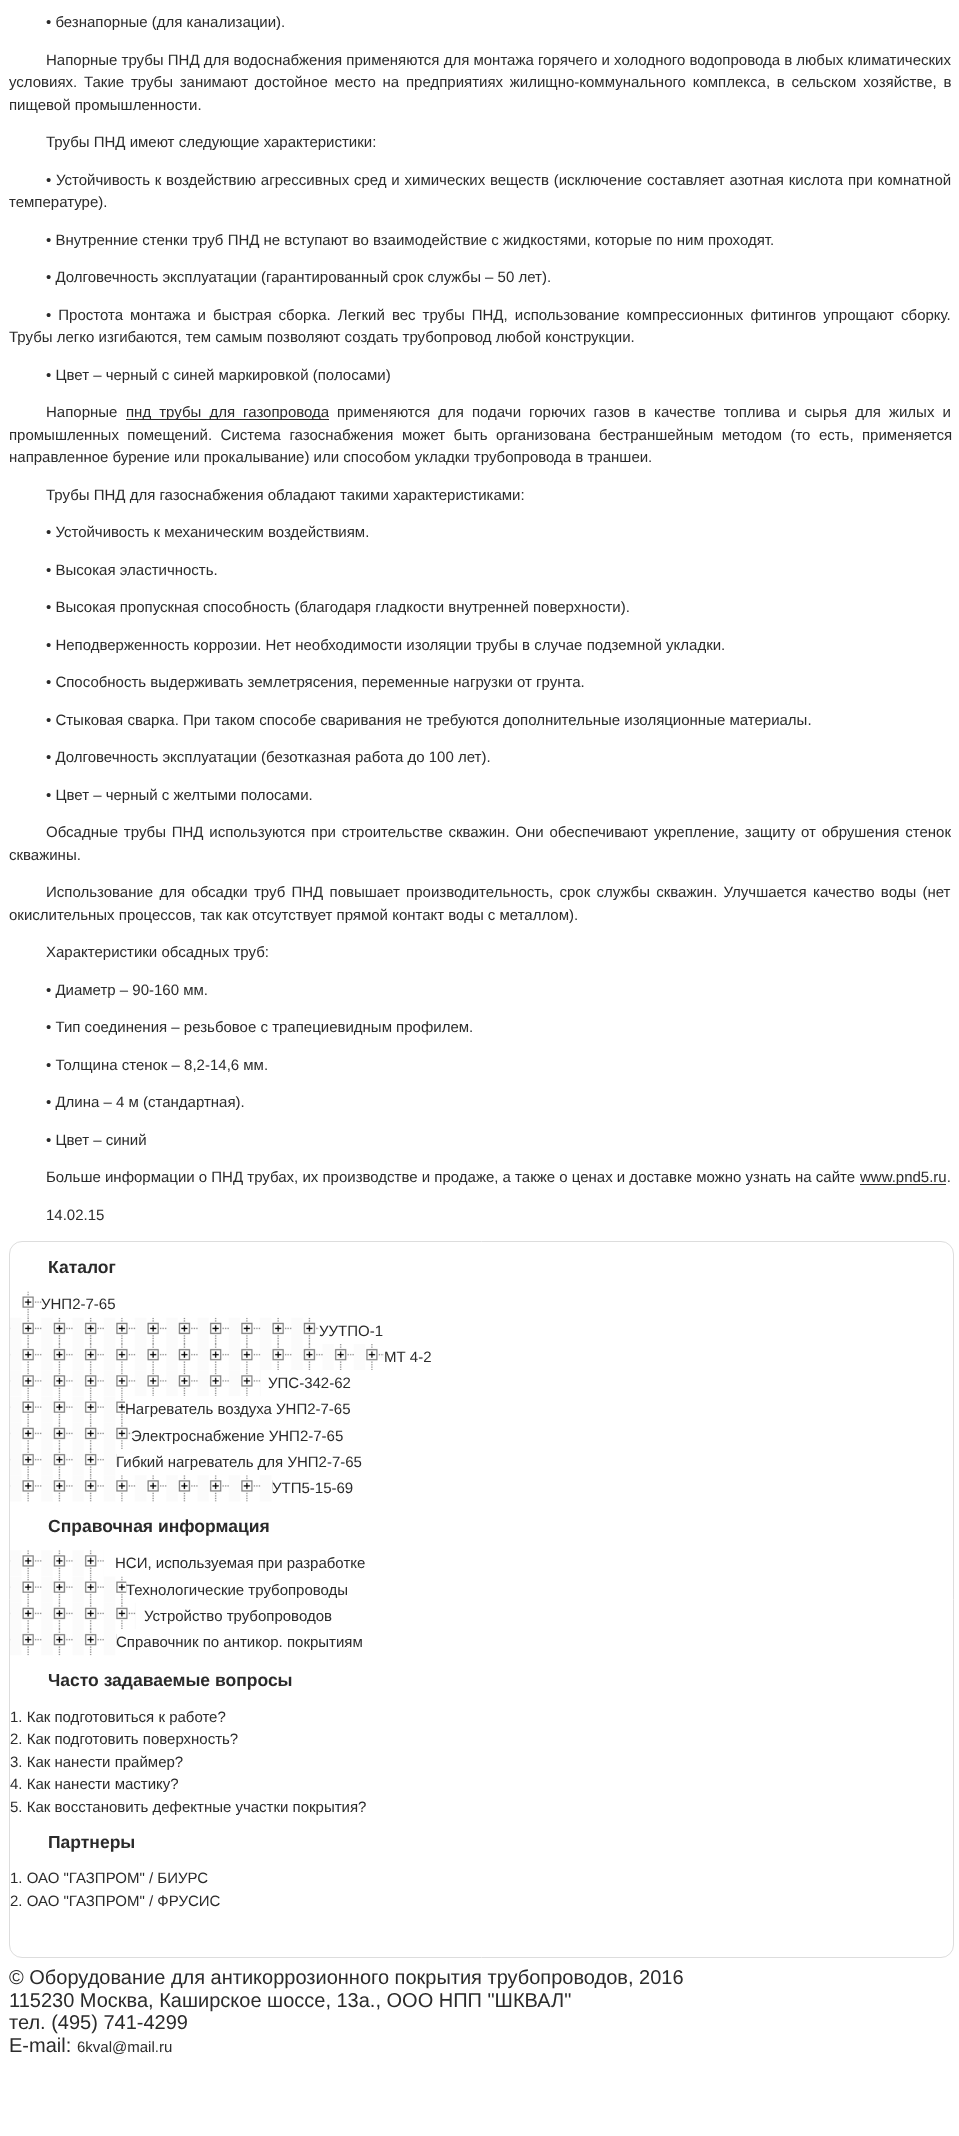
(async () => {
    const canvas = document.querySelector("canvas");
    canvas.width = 959;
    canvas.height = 2136;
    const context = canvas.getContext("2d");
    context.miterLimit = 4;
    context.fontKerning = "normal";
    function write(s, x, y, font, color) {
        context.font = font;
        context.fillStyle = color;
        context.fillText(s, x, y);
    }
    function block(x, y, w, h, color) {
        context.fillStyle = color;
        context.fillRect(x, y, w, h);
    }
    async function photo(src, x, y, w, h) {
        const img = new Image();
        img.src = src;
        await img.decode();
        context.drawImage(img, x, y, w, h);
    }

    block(0, 0, 959, 2136, "rgb(255, 255, 255)");
    write("• безнапорные (для канализации).", 46, 27, "15px Liberation Sans", "rgb(43, 43, 43)");
    write("Напорные трубы ПНД для водоснабжения применяются для монтажа горячего и холодного водопровода в любых климатических", 46, 65, "15px Liberation Sans", "rgb(43, 43, 43)");
    context.wordSpacing = "2.6px";
    write("условиях. Такие трубы занимают достойное место на предприятиях жилищно-коммунального комплекса, в сельском хозяйстве, в", 9, 87, "15px Liberation Sans", "rgb(43, 43, 43)");
    context.wordSpacing = "0px";
    write("пищевой промышленности.", 9, 110, "15px Liberation Sans", "rgb(43, 43, 43)");
    write("Трубы ПНД имеют следующие характеристики:", 46, 147, "15px Liberation Sans", "rgb(43, 43, 43)");
    context.wordSpacing = "0.6px";
    write("• Устойчивость к воздействию агрессивных сред и химических веществ (исключение составляет азотная кислота при комнатной", 46, 185, "15px Liberation Sans", "rgb(43, 43, 43)");
    context.wordSpacing = "0px";
    write("температуре).", 9, 207, "15px Liberation Sans", "rgb(43, 43, 43)");
    write("• Внутренние стенки труб ПНД не вступают во взаимодействие с жидкостями, которые по ним проходят.", 46, 245, "15px Liberation Sans", "rgb(43, 43, 43)");
    write("• Долговечность эксплуатации (гарантированный срок службы – 50 лет).", 46, 282, "15px Liberation Sans", "rgb(43, 43, 43)");
    context.wordSpacing = "2.9px";
    write("• Простота монтажа и быстрая сборка. Легкий вес трубы ПНД, использование компрессионных фитингов упрощают сборку.", 46, 320, "15px Liberation Sans", "rgb(43, 43, 43)");
    context.wordSpacing = "0px";
    write("Трубы легко изгибаются, тем самым позволяют создать трубопровод любой конструкции.", 9, 342, "15px Liberation Sans", "rgb(43, 43, 43)");
    write("• Цвет – черный с синей маркировкой (полосами)", 46, 380, "15px Liberation Sans", "rgb(43, 43, 43)");
    write("Напорные", 46, 417, "15px Liberation Sans", "rgb(43, 43, 43)");
    block(126, 419, 203, 1, "rgb(43, 43, 43)");
    context.wordSpacing = "3.9px";
    write("пнд трубы для газопровода", 126, 417, "15px Liberation Sans", "rgb(43, 43, 43)");
    write("применяются для подачи горючих газов в качестве топлива и сырья для жилых и", 337, 417, "15px Liberation Sans", "rgb(43, 43, 43)");
    context.wordSpacing = "4.25px";
    write("промышленных помещений. Система газоснабжения может быть организована бестраншейным методом (то есть, применяется", 9, 440, "15px Liberation Sans", "rgb(43, 43, 43)");
    context.wordSpacing = "0px";
    write("направленное бурение или прокалывание) или способом укладки трубопровода в траншеи.", 9, 462, "15px Liberation Sans", "rgb(43, 43, 43)");
    write("Трубы ПНД для газоснабжения обладают такими характеристиками:", 46, 500, "15px Liberation Sans", "rgb(43, 43, 43)");
    write("• Устойчивость к механическим воздействиям.", 46, 537, "15px Liberation Sans", "rgb(43, 43, 43)");
    write("• Высокая эластичность.", 46, 575, "15px Liberation Sans", "rgb(43, 43, 43)");
    write("• Высокая пропускная способность (благодаря гладкости внутренней поверхности).", 46, 612, "15px Liberation Sans", "rgb(43, 43, 43)");
    write("• Неподверженность коррозии. Нет необходимости изоляции трубы в случае подземной укладки.", 46, 650, "15px Liberation Sans", "rgb(43, 43, 43)");
    write("• Способность выдерживать землетрясения, переменные нагрузки от грунта.", 46, 687, "15px Liberation Sans", "rgb(43, 43, 43)");
    write("• Стыковая сварка. При таком способе сваривания не требуются дополнительные изоляционные материалы.", 46, 725, "15px Liberation Sans", "rgb(43, 43, 43)");
    write("• Долговечность эксплуатации (безотказная работа до 100 лет).", 46, 762, "15px Liberation Sans", "rgb(43, 43, 43)");
    write("• Цвет – черный с желтыми полосами.", 46, 800, "15px Liberation Sans", "rgb(43, 43, 43)");
    context.wordSpacing = "1.6px";
    write("Обсадные трубы ПНД используются при строительстве скважин. Они обеспечивают укрепление, защиту от обрушения стенок", 46, 837, "15px Liberation Sans", "rgb(43, 43, 43)");
    context.wordSpacing = "0px";
    write("скважины.", 9, 860, "15px Liberation Sans", "rgb(43, 43, 43)");
    context.wordSpacing = "2.1px";
    write("Использование для обсадки труб ПНД повышает производительность, срок службы скважин. Улучшается качество воды (нет", 46, 897, "15px Liberation Sans", "rgb(43, 43, 43)");
    context.wordSpacing = "0px";
    write("окислительных процессов, так как отсутствует прямой контакт воды с металлом).", 9, 920, "15px Liberation Sans", "rgb(43, 43, 43)");
    write("Характеристики обсадных труб:", 46, 957, "15px Liberation Sans", "rgb(43, 43, 43)");
    write("• Диаметр – 90-160 мм.", 46, 995, "15px Liberation Sans", "rgb(43, 43, 43)");
    write("• Тип соединения – резьбовое с трапециевидным профилем.", 46, 1032, "15px Liberation Sans", "rgb(43, 43, 43)");
    write("• Толщина стенок – 8,2-14,6 мм.", 46, 1070, "15px Liberation Sans", "rgb(43, 43, 43)");
    write("• Длина – 4 м (стандартная).", 46, 1107, "15px Liberation Sans", "rgb(43, 43, 43)");
    write("• Цвет – синий", 46, 1145, "15px Liberation Sans", "rgb(43, 43, 43)");
    write("Больше информации о ПНД трубах, их производстве и продаже, а также о ценах и доставке можно узнать на сайте", 46, 1182, "15px Liberation Sans", "rgb(43, 43, 43)");
    block(860, 1184, 86, 1, "rgb(43, 43, 43)");
    write("www.pnd5.ru.", 860, 1182, "15px Liberation Sans", "rgb(43, 43, 43)");
    write("14.02.15", 46, 1220, "15px Liberation Sans", "rgb(43, 43, 43)");
    context.beginPath();
    context.roundRect(9.5, 1241.5, 944, 716, 12.5);
    context.strokeStyle = "rgb(221, 221, 221)";
    context.stroke();
    write("Каталог", 48, 1273, "bold 17.5px Liberation Sans", "rgb(43, 43, 43)");
    await photo("media/1.png", 22, 1291, 20, 27);
    write("УНП2-7-65", 41, 1309, "15px Liberation Sans", "rgb(43, 43, 43)");
    await photo("media/2.png", 10, 1317, 309, 27);
    write("УУТПО-1", 319, 1336, "15px Liberation Sans", "rgb(43, 43, 43)");
    await photo("media/3.png", 10, 1344, 374, 26);
    write("МТ 4-2", 384, 1362, "15px Liberation Sans", "rgb(43, 43, 43)");
    await photo("media/4.png", 10, 1370, 251, 26);
    write("УПС-342-62", 268, 1388, "15px Liberation Sans", "rgb(43, 43, 43)");
    await photo("media/5.png", 10, 1396, 115, 27);
    write("Нагреватель воздуха УНП2-7-65", 125, 1414, "15px Liberation Sans", "rgb(43, 43, 43)");
    await photo("media/6.png", 10, 1422, 122, 27);
    write("Электроснабжение УНП2-7-65", 131, 1441, "15px Liberation Sans", "rgb(43, 43, 43)");
    await photo("media/7.png", 10, 1449, 107, 26);
    write("Гибкий нагреватель для УНП2-7-65", 116, 1467, "15px Liberation Sans", "rgb(43, 43, 43)");
    await photo("media/8.png", 10, 1475, 263, 27);
    write("УТП5-15-69", 272, 1493, "15px Liberation Sans", "rgb(43, 43, 43)");
    write("Справочная информация", 48, 1532, "bold 17.5px Liberation Sans", "rgb(43, 43, 43)");
    await photo("media/9.png", 10, 1550, 94, 26);
    write("НСИ, используемая при разработке", 115, 1568, "15px Liberation Sans", "rgb(43, 43, 43)");
    await photo("media/10.png", 10, 1576, 117, 27);
    write("Технологические трубопроводы", 126, 1595, "15px Liberation Sans", "rgb(43, 43, 43)");
    await photo("media/11.png", 10, 1602, 126, 27);
    write("Устройство трубопроводов", 144, 1621, "15px Liberation Sans", "rgb(43, 43, 43)");
    await photo("media/12.png", 10, 1629, 107, 27);
    write("Справочник по антикор. покрытиям", 116, 1647, "15px Liberation Sans", "rgb(43, 43, 43)");
    write("Часто задаваемые вопросы", 48, 1686, "bold 17.5px Liberation Sans", "rgb(43, 43, 43)");
    write("1. Как подготовиться к работе?", 10, 1722, "15px Liberation Sans", "rgb(43, 43, 43)");
    write("2. Как подготовить поверхность?", 10, 1744, "15px Liberation Sans", "rgb(43, 43, 43)");
    write("3. Как нанести праймер?", 10, 1767, "15px Liberation Sans", "rgb(43, 43, 43)");
    write("4. Как нанести мастику?", 10, 1789, "15px Liberation Sans", "rgb(43, 43, 43)");
    write("5. Как восстановить дефектные участки покрытия?", 10, 1812, "15px Liberation Sans", "rgb(43, 43, 43)");
    write("Партнеры", 48, 1848, "bold 17.5px Liberation Sans", "rgb(43, 43, 43)");
    write("1. ОАО \"ГАЗПРОМ\" / БИУРС", 10, 1883, "15px Liberation Sans", "rgb(43, 43, 43)");
    write("2. ОАО \"ГАЗПРОМ\" / ФРУСИС", 10, 1906, "15px Liberation Sans", "rgb(43, 43, 43)");
    write("© Оборудование для антикоррозионного покрытия трубопроводов, 2016", 9, 1984, "20px Liberation Sans", "rgb(43, 43, 43)");
    write("115230 Москва, Каширское шоссе, 13а., ООО НПП \"ШКВАЛ\"", 9, 2007, "20px Liberation Sans", "rgb(43, 43, 43)");
    write("тел. (495) 741-4299", 9, 2029, "20px Liberation Sans", "rgb(43, 43, 43)");
    write("E-mail:", 9, 2052, "20px Liberation Sans", "rgb(43, 43, 43)");
    write("6kval@mail.ru", 77, 2052, "15px Liberation Sans", "rgb(43, 43, 43)");
})();
